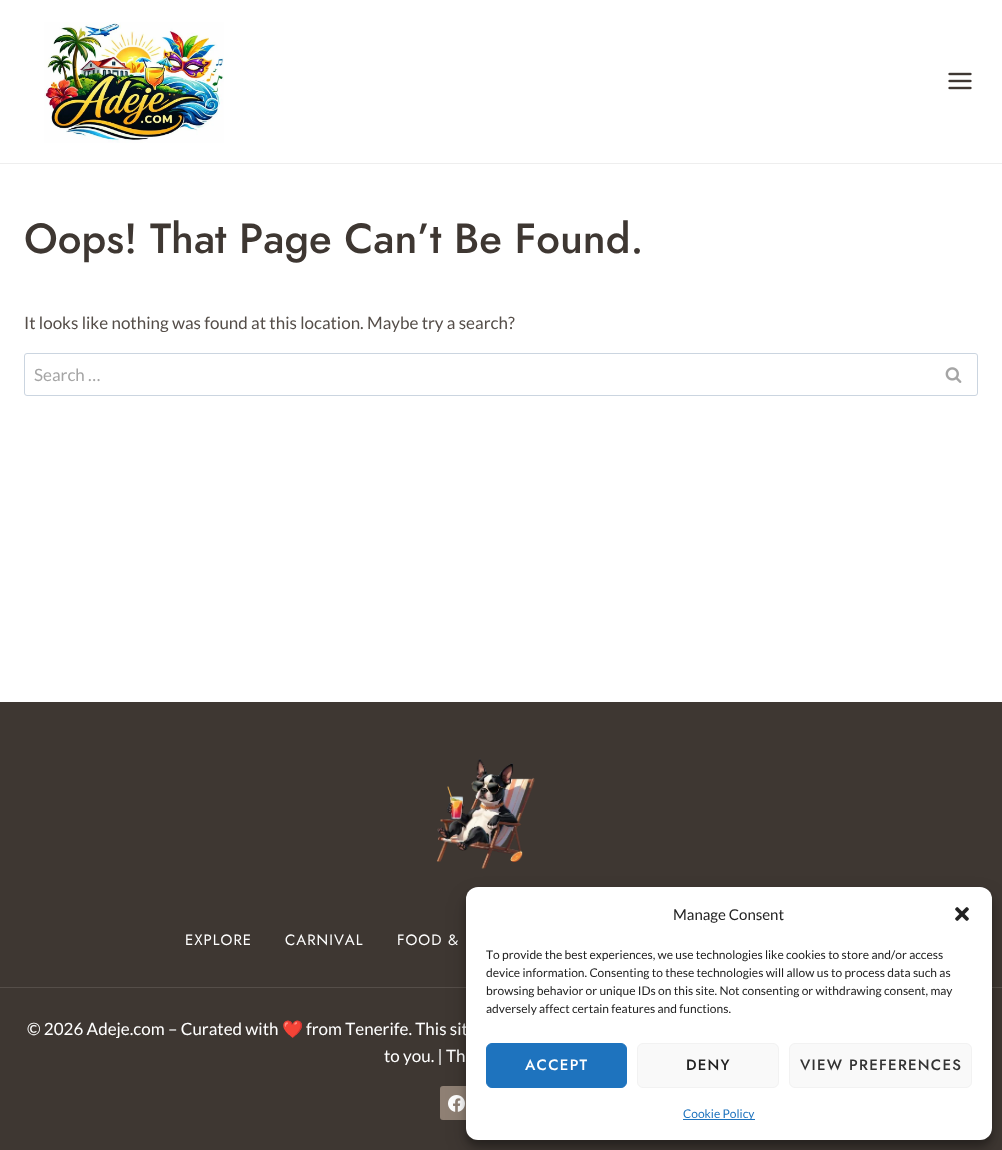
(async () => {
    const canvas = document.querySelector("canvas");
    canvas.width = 1002;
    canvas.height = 1150;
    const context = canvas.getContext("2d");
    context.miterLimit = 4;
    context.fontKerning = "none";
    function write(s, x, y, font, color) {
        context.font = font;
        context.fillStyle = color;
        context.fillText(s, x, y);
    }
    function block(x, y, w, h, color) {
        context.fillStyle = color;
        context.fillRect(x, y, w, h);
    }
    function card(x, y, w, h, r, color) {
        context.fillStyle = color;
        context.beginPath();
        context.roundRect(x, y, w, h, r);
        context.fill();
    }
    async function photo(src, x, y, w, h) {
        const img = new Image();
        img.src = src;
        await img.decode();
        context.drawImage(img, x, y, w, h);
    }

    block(0, 0, 1002, 1150, "rgb(255, 255, 255)");
    block(0, 163, 1002, 1, "rgb(238, 238, 238)");
    await photo("media/1.png", 44, 22, 180, 121);
    await photo("media/2.png", 948, 72, 24, 18);
    write("Oops! That Page Can’t Be Found.", 24, 253, "500 42px Jost", "rgb(62, 55, 50)");
    write("It looks like nothing was found at this location. Maybe try a search?", 24, 329, "17px Lato", "rgb(85, 78, 73)");
    context.beginPath();
    context.roundRect(24.5, 353.5, 953, 42, 2.5);
    context.strokeStyle = "rgb(203, 213, 224)";
    context.stroke();
    write("Search …", 34, 381, "17px Lato", "rgb(165, 165, 165)");
    await photo("media/3.png", 945, 367, 17, 16);
    block(0, 702, 1002, 448, "rgb(62, 55, 50)");
    await photo("media/4.png", 436, 758, 99, 111);
    context.letterSpacing = "1px";
    write("EXPLORE", 185, 945, "15px Jost", "rgb(255, 255, 255)");
    write("CARNIVAL", 285, 945, "15px Jost", "rgb(255, 255, 255)");
    write("FOOD &", 397, 945, "15px Jost", "rgb(255, 255, 255)");
    block(0, 987, 1002, 1, "rgb(85, 78, 73)");
    context.letterSpacing = "0px";
    write("© 2026 Adeje.com – Curated with", 27, 1035, "17px Lato", "rgb(255, 255, 255)");
    write("❤️", 282, 1035, "17px Noto Color Emoji", "rgb(255, 255, 255)");
    write("from Tenerife. This sit", 306, 1035, "17px Lato", "rgb(255, 255, 255)");
    write("to you. | Th", 384, 1062, "17px Lato", "rgb(255, 255, 255)");
    card(440, 1086, 34, 34, 3, "rgb(143, 128, 116)");
    await photo("media/5.png", 448, 1095, 17, 17);
    context.fillStyle = "rgba(0, 0, 0, 0.23)";
    context.filter = "blur(3px)";
    context.beginPath();
    context.roundRect(466, 893, 526, 253, 12);
    context.fill();
    context.filter = "none";
    context.fillStyle = "rgba(0, 0, 0, 0.19)";
    context.filter = "blur(10px)";
    context.beginPath();
    context.roundRect(466, 897, 526, 253, 12);
    context.fill();
    context.filter = "none";
    card(466, 887, 526, 253, 12, "rgb(255, 255, 255)");
    write("Manage Consent", 673, 920, "15px Lato", "rgb(34, 34, 34)");
    await photo("media/6.png", 955, 907, 14, 14);
    write("To provide the best experiences, we use technologies like cookies to store and/or access", 486, 959, "12px Lato", "rgb(34, 34, 34)");
    write("device information. Consenting to these technologies will allow us to process data such as", 486, 977, "12px Lato", "rgb(34, 34, 34)");
    write("browsing behavior or unique IDs on this site. Not consenting or withdrawing consent, may", 486, 995, "12px Lato", "rgb(34, 34, 34)");
    write("adversely affect certain features and functions.", 486, 1013, "12px Lato", "rgb(34, 34, 34)");
    context.fillStyle = "rgb(30, 115, 190)";
    context.beginPath();
    context.roundRect(486.5, 1043.5, 140, 44, 5.5);
    context.fill();
    context.strokeStyle = "rgb(30, 115, 190)";
    context.stroke();
    context.letterSpacing = "1.25px";
    write("ACCEPT", 525, 1070, "500 15px Jost", "rgb(255, 255, 255)");
    context.fillStyle = "rgb(249, 249, 249)";
    context.beginPath();
    context.roundRect(637.5, 1043.5, 141, 44, 5.5);
    context.fill();
    context.strokeStyle = "rgb(242, 242, 242)";
    context.stroke();
    write("DENY", 686, 1070, "500 15px Jost", "rgb(34, 34, 34)");
    context.fillStyle = "rgb(249, 249, 249)";
    context.beginPath();
    context.roundRect(789.5, 1043.5, 182, 44, 5.5);
    context.fill();
    context.stroke();
    write("VIEW PREFERENCES", 800, 1070, "500 15px Jost", "rgb(51, 51, 51)");
    block(683, 1119, 72, 1, "rgb(30, 115, 190)");
    context.letterSpacing = "0px";
    write("Cookie Policy", 683, 1118, "12px Lato", "rgb(30, 115, 190)");
})();
